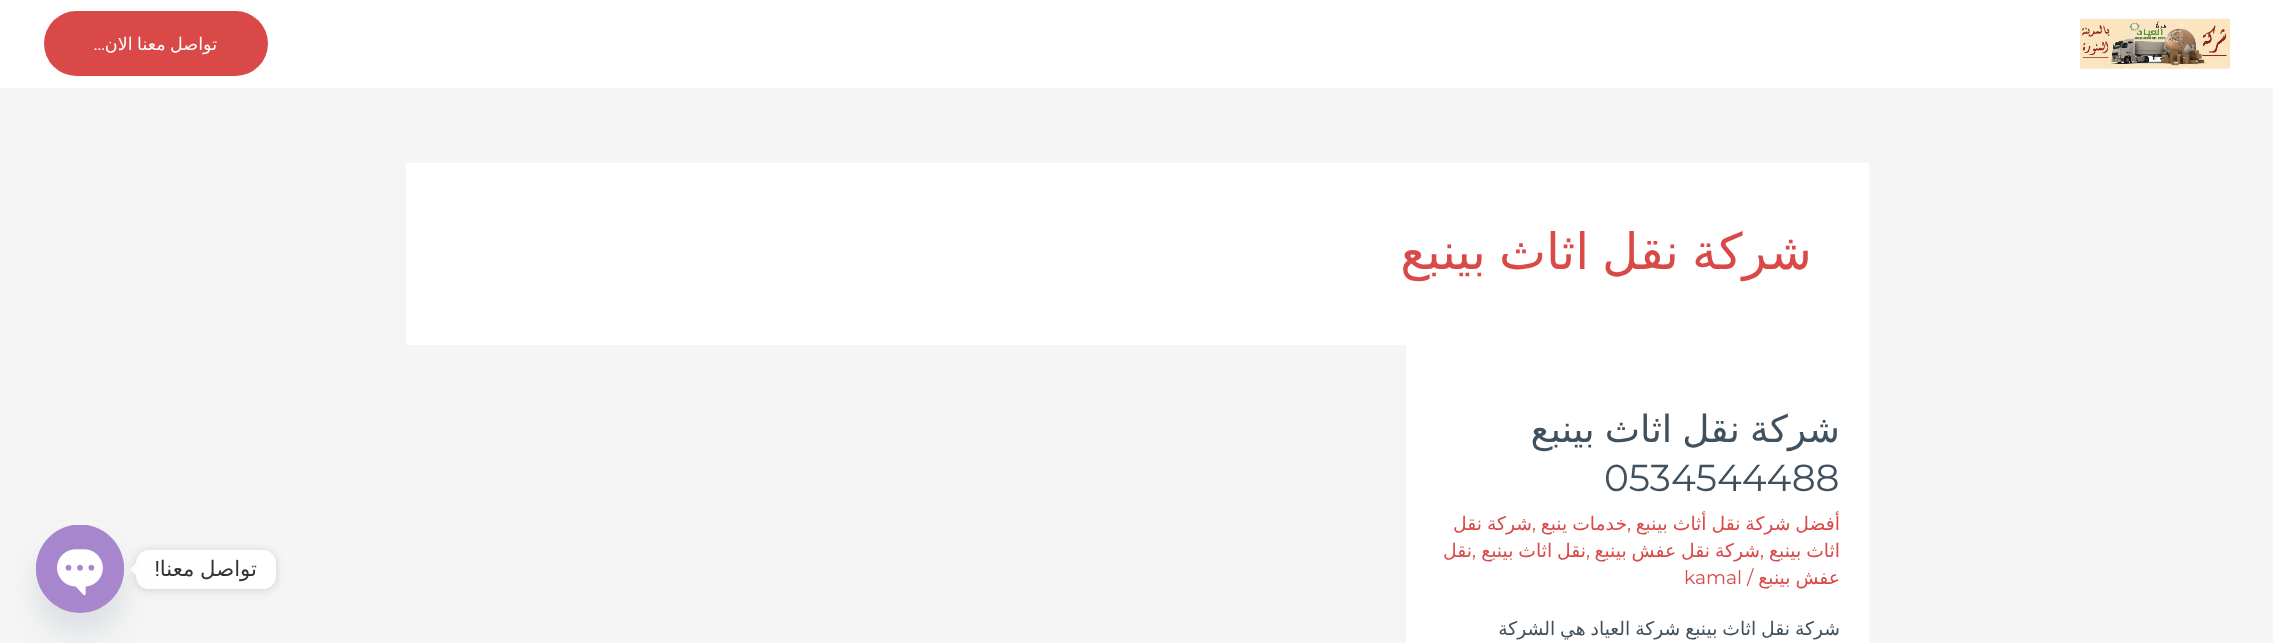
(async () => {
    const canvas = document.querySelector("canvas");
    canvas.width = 2273;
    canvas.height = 643;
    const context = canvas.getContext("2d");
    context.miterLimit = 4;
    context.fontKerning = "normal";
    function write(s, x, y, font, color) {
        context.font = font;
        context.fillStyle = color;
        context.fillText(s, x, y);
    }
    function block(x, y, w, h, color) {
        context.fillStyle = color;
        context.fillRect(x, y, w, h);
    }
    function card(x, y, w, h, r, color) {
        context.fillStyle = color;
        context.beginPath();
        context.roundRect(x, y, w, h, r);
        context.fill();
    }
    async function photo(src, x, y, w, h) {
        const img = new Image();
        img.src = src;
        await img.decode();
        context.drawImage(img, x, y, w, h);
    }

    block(0, 0, 2273, 643, "rgb(245, 245, 245)");
    block(0, 0, 2273, 88, "rgb(255, 255, 255)");
    await photo("media/1.png", 2080, 18, 150, 51);
    card(44, 11, 224, 65, 32.5, "rgb(217, 73, 72)");
    context.wordSpacing = "-1px";
    context.direction = "rtl";
    write("تواصل معنا الان", 217, 50, "17.5px DejaVu Sans", "rgb(255, 255, 255)");
    context.wordSpacing = "0px";
    write("...", 105, 50, "17.5px Montserrat", "rgb(255, 255, 255)");
    block(406, 163, 1463, 182, "rgb(255, 255, 255)");
    context.wordSpacing = "-3px";
    write("شركة نقل اثاث بينبع", 1812, 269, "50px DejaVu Sans", "rgb(217, 73, 72)");
    block(1406, 345, 463, 298, "rgb(255, 255, 255)");
    context.wordSpacing = "-2px";
    write("شركة نقل اثاث بينبع", 1840, 442, "37.5px DejaVu Sans", "rgb(65, 80, 93)");
    context.wordSpacing = "0px";
    context.direction = "ltr";
    write("0534544488", 1604, 491, "37.5px Montserrat", "rgb(65, 80, 93)");
    context.wordSpacing = "-1px";
    context.direction = "rtl";
    write("أفضل شركة نقل أثاث بينبع", 1840, 530, "18.75px DejaVu Sans", "rgb(217, 73, 72)");
    context.wordSpacing = "0px";
    context.direction = "ltr";
    write(",", 1627, 530, "18.75px Montserrat", "rgb(217, 73, 72)");
    context.wordSpacing = "-1px";
    context.direction = "rtl";
    write("خدمات ينبع", 1627, 530, "18.75px DejaVu Sans", "rgb(217, 73, 72)");
    context.wordSpacing = "0px";
    context.direction = "ltr";
    write(",", 1532, 530, "18.75px Montserrat", "rgb(217, 73, 72)");
    context.wordSpacing = "-1px";
    context.direction = "rtl";
    write("شركة نقل", 1532, 530, "18.75px DejaVu Sans", "rgb(217, 73, 72)");
    write("اثاث بينبع", 1840, 557, "18.75px DejaVu Sans", "rgb(217, 73, 72)");
    context.wordSpacing = "0px";
    context.direction = "ltr";
    write(",", 1760, 557, "18.75px Montserrat", "rgb(217, 73, 72)");
    context.wordSpacing = "-1px";
    context.direction = "rtl";
    write("شركة نقل عفش بينبع", 1760, 557, "18.75px DejaVu Sans", "rgb(217, 73, 72)");
    context.wordSpacing = "0px";
    context.direction = "ltr";
    write(",", 1586, 557, "18.75px Montserrat", "rgb(217, 73, 72)");
    context.wordSpacing = "-1px";
    context.direction = "rtl";
    write("نقل اثاث بينبع", 1586, 557, "18.75px DejaVu Sans", "rgb(217, 73, 72)");
    context.wordSpacing = "0px";
    context.direction = "ltr";
    write(",", 1472, 557, "18.75px Montserrat", "rgb(217, 73, 72)");
    context.direction = "rtl";
    write("نقل", 1472, 557, "18.75px DejaVu Sans", "rgb(217, 73, 72)");
    context.wordSpacing = "-1px";
    write("عفش بينبع", 1840, 584, "18.75px DejaVu Sans", "rgb(217, 73, 72)");
    context.wordSpacing = "0px";
    context.direction = "ltr";
    write("/", 1747, 584, "18.75px Montserrat", "rgb(217, 73, 72)");
    write("kamal", 1684, 584, "18.75px Montserrat", "rgb(217, 73, 72)");
    context.wordSpacing = "-1px";
    context.direction = "rtl";
    write("شركة نقل اثاث بينبع شركة العياد هي الشركة", 1840, 635, "18.75px DejaVu Sans", "rgb(65, 80, 93)");
    context.fillStyle = "rgba(0, 0, 0, 0.15)";
    context.filter = "blur(5px)";
    context.beginPath();
    context.roundRect(136, 551, 140, 39, 13);
    context.fill();
    context.filter = "none";
    card(136, 550, 140, 39, 13, "rgb(255, 255, 255)");
    write("تواصل معنا", 257, 576, "21.25px DejaVu Sans", "rgb(51, 51, 51)");
    context.wordSpacing = "0px";
    write("!", 160, 576, "21.25px Roboto", "rgb(51, 51, 51)");
    context.fillStyle = "rgb(255, 255, 255)";
    context.beginPath();
    context.moveTo(136, 563);
    context.lineTo(136, 575.5);
    context.lineTo(130, 569.5);
    context.closePath();
    context.fill();
    context.fillStyle = "rgba(73, 104, 126, 0.16)";
    context.filter = "blur(15px)";
    context.beginPath();
    context.roundRect(36, 545, 88, 88, 44);
    context.fill();
    context.filter = "none";
    context.fillStyle = "rgb(168, 134, 205)";
    context.beginPath();
    context.arc(80, 569, 44, 0, Math.PI * 2);
    context.fill();
    await photo("media/2.png", 36, 525, 88, 71);
})();
